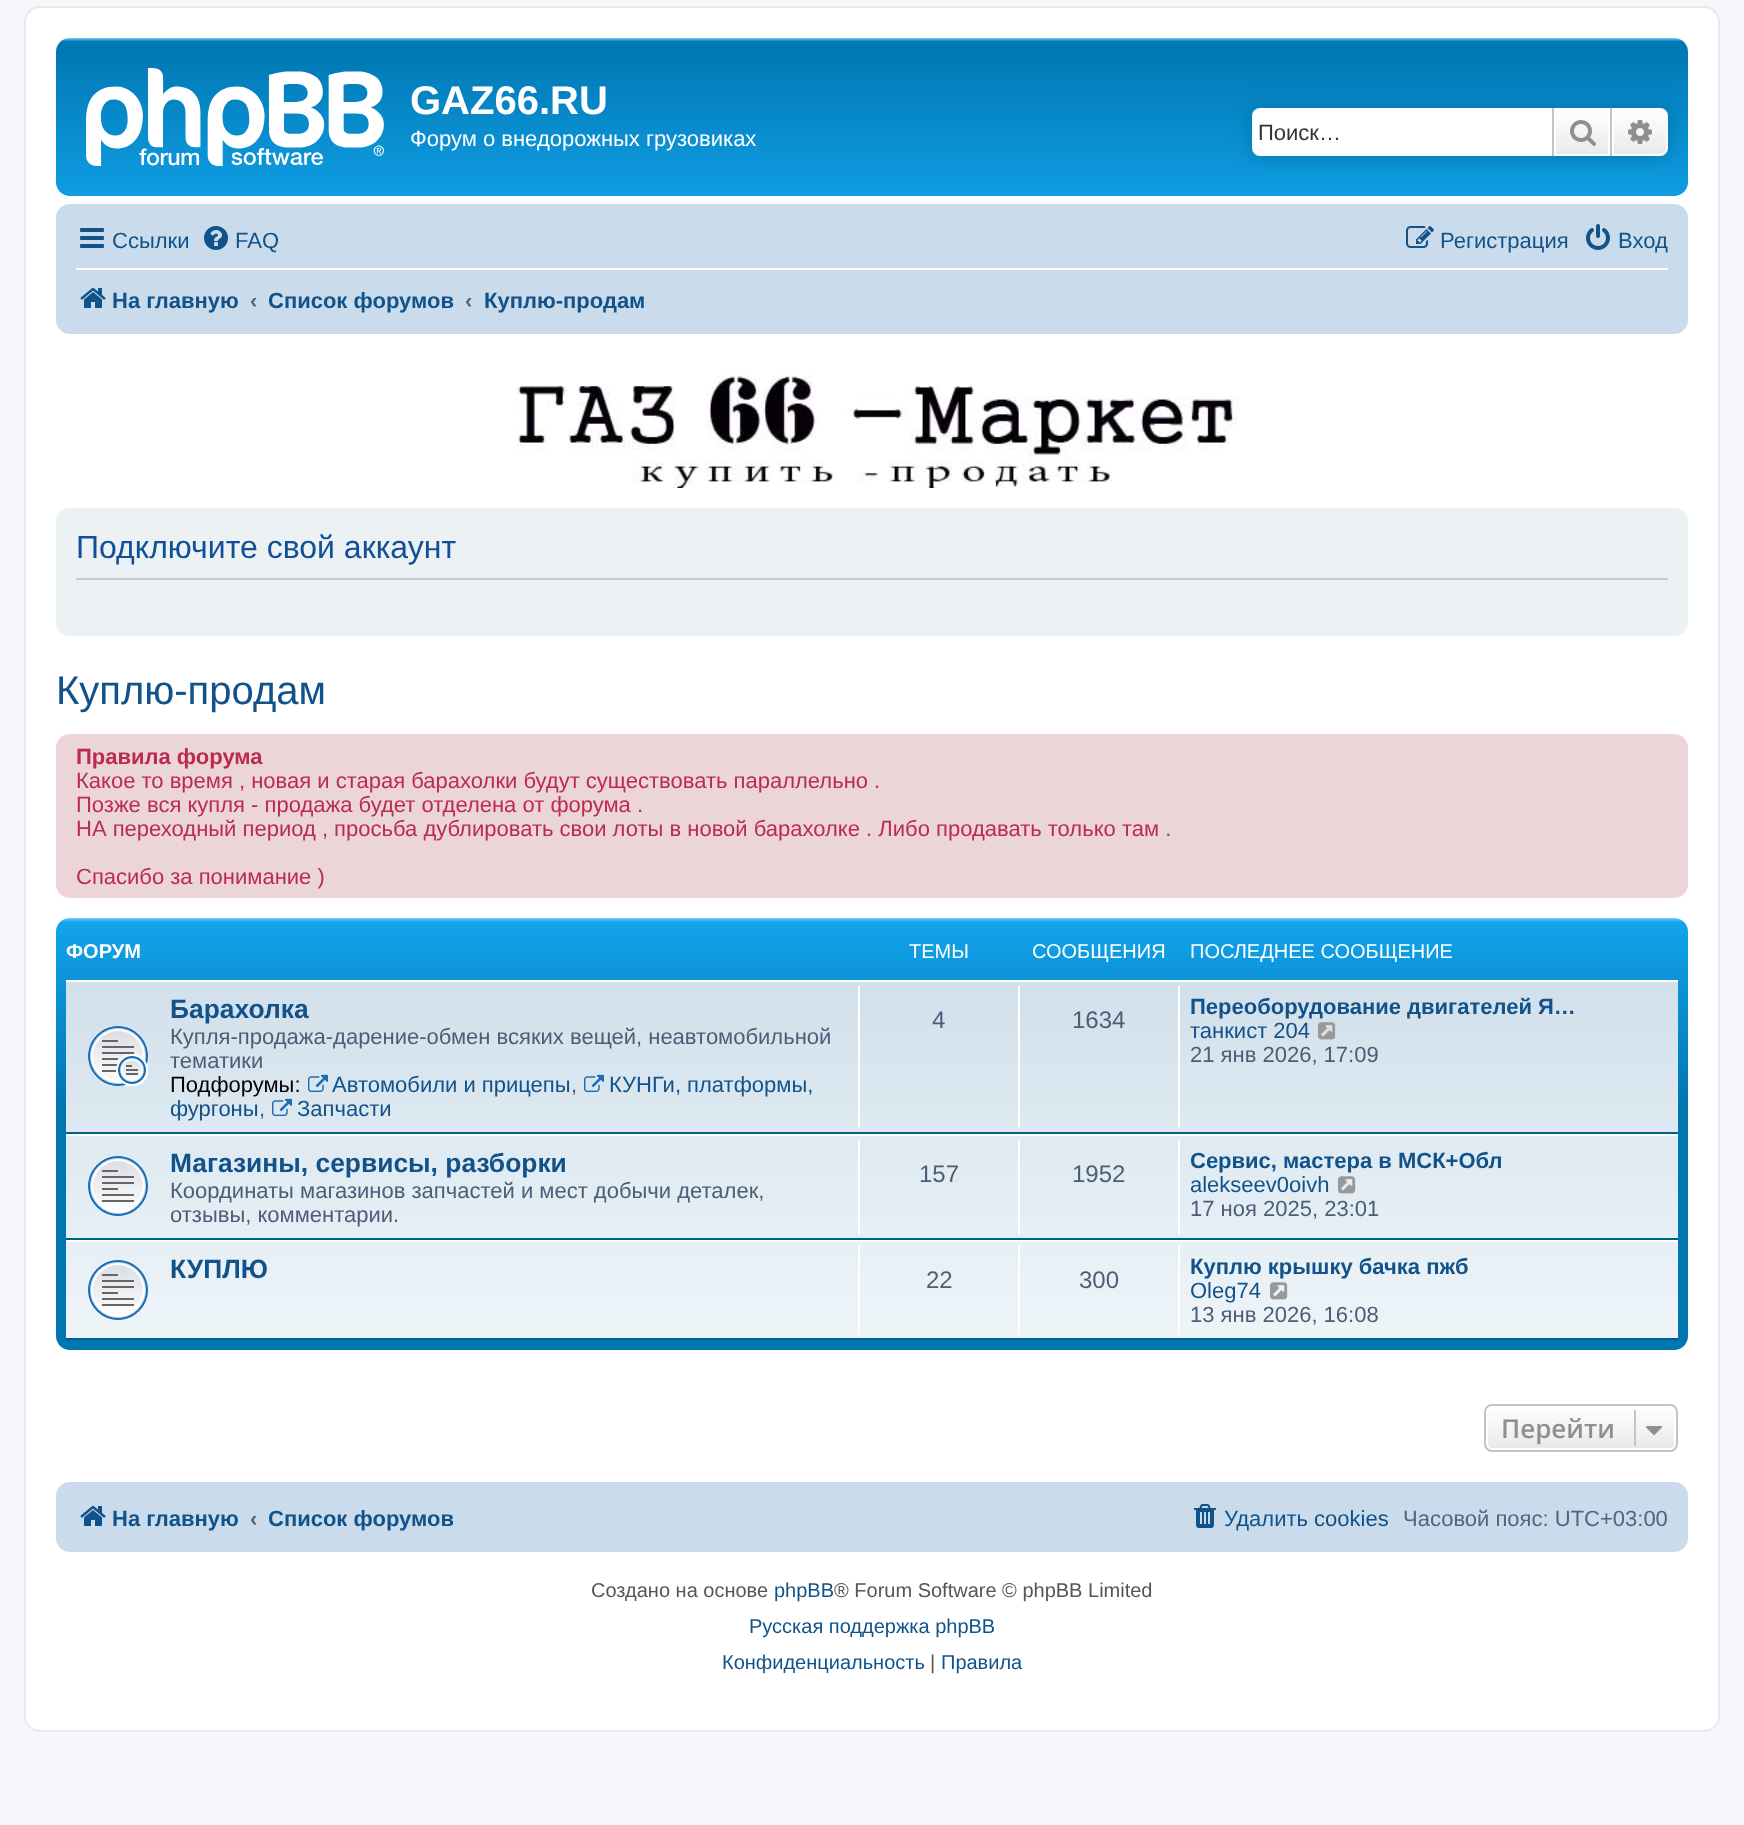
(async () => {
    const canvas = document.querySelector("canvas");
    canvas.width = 1744;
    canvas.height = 1825;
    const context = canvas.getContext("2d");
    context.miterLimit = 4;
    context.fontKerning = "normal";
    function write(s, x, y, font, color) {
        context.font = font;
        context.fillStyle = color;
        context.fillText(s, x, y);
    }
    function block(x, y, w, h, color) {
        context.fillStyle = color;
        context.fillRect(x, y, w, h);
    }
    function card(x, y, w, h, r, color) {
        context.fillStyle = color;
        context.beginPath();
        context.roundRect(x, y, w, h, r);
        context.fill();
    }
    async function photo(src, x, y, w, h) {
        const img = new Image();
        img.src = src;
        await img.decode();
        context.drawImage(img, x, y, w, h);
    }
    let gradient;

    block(0, 0, 1744, 1825, "rgb(245, 247, 250)");
    context.fillStyle = "rgb(255, 255, 255)";
    context.beginPath();
    context.roundRect(25, 7, 1694, 1724, 15);
    context.fill();
    context.strokeStyle = "rgb(230, 233, 237)";
    context.lineWidth = 2;
    context.stroke();
    gradient = context.createLinearGradient(872, 38, 872, 222);
    gradient.addColorStop(0, "rgb(106, 206, 255)");
    gradient.addColorStop(0.02, "rgb(0, 118, 177)");
    gradient.addColorStop(1, "rgb(18, 163, 235)");
    context.fillStyle = gradient;
    context.beginPath();
    context.roundRect(56, 38, 1632, 158, 14);
    context.fill();
    await photo("media/1.png", 86, 68, 298, 98);
    write("GAZ66.RU", 410, 114, "bold 40px Liberation Sans", "rgb(255, 255, 255)");
    write("Форум о внедорожных грузовиках", 410, 146, "22px Liberation Sans", "rgb(255, 255, 255)");
    context.fillStyle = "rgb(0, 117, 176)";
    context.filter = "blur(10px)";
    context.beginPath();
    context.roundRect(1252, 108, 416, 48, 8);
    context.fill();
    context.filter = "none";
    context.fillStyle = "rgb(255, 255, 255)";
    context.beginPath();
    context.roundRect(1252, 108, 300, 48, [8, 0, 0, 8]);
    context.fill();
    write("Поиск…", 1258, 140, "22px Liberation Sans", "rgb(51, 51, 51)");
    gradient = context.createLinearGradient(1582, 108, 1582, 156);
    gradient.addColorStop(0, "rgb(255, 255, 255)");
    gradient.addColorStop(1, "rgb(233, 233, 233)");
    context.fillStyle = gradient;
    context.fillRect(1556, 110, 52, 44);
    context.strokeStyle = "rgb(255, 255, 255)";
    context.strokeRect(1555, 109, 54, 46);
    block(1610, 108, 2, 48, "rgb(199, 195, 191)");
    block(1552, 108, 2, 48, "rgb(199, 195, 191)");
    await photo("media/2.png", 1570, 120, 26, 26);
    gradient = context.createLinearGradient(1640, 108, 1640, 156);
    gradient.addColorStop(0, "rgb(255, 255, 255)");
    gradient.addColorStop(1, "rgb(233, 233, 233)");
    context.fillStyle = gradient;
    context.beginPath();
    context.roundRect(1613, 109, 54, 46, [0, 7, 7, 0]);
    context.fill();
    context.stroke();
    await photo("media/3.png", 1628, 120, 24, 24);
    card(56, 204, 1632, 130, 14, "rgb(202, 220, 235)");
    await photo("media/4.png", 80, 228, 24, 20);
    write("Ссылки", 112, 248, "22px Liberation Sans", "rgb(16, 82, 137)");
    await photo("media/5.png", 204, 226, 24, 24);
    write("FAQ", 235, 248, "22px Liberation Sans", "rgb(16, 82, 137)");
    await photo("media/6.png", 1406, 226, 28, 22);
    write("Регистрация", 1440, 248, "22px Liberation Sans", "rgb(16, 82, 137)");
    await photo("media/7.png", 1586, 224, 24, 26);
    write("Вход", 1618, 248, "22px Liberation Sans", "rgb(16, 82, 137)");
    block(76, 268, 1592, 2, "rgb(255, 255, 255)");
    await photo("media/8.png", 80, 288, 26, 20);
    write("На главную", 112, 308, "bold 22px Liberation Sans", "rgb(16, 82, 137)");
    write("‹", 250, 308, "bold 22px Liberation Sans", "rgb(83, 100, 130)");
    write("Список форумов", 268, 308, "bold 22px Liberation Sans", "rgb(16, 82, 137)");
    write("‹", 465, 308, "bold 22px Liberation Sans", "rgb(83, 100, 130)");
    write("Куплю-продам", 484, 308, "bold 22px Liberation Sans", "rgb(16, 82, 137)");
    await photo("media/9.png", 515, 375, 725, 113);
    card(56, 508, 1632, 128, 14, "rgb(236, 241, 243)");
    block(76, 578, 1592, 2, "rgb(204, 204, 204)");
    write("Подключите свой аккаунт", 76, 558, "32px Liberation Sans", "rgb(17, 80, 152)");
    write("Куплю-продам", 56, 704, "40px Liberation Sans", "rgb(16, 82, 137)");
    card(56, 734, 1632, 164, 14, "rgb(236, 213, 216)");
    write("Правила форума", 76, 764, "bold 22px Liberation Sans", "rgb(188, 42, 77)");
    write("Какое то время , новая и старая барахолки будут существовать параллельно .", 76, 788, "22px Liberation Sans", "rgb(188, 42, 77)");
    write("Позже вся купля - продажа будет отделена от форума .", 76, 812, "22px Liberation Sans", "rgb(188, 42, 77)");
    write("НА переходный период , просьба дублировать свои лоты в новой барахолке . Либо продавать только там .", 76, 836, "22px Liberation Sans", "rgb(188, 42, 77)");
    write("Спасибо за понимание )", 76, 884, "22px Liberation Sans", "rgb(188, 42, 77)");
    gradient = context.createLinearGradient(872, 918, 872, 1350);
    gradient.addColorStop(0, "rgb(106, 206, 255)");
    gradient.addColorStop(0.01, "rgb(18, 163, 235)");
    gradient.addColorStop(0.43, "rgb(0, 118, 177)");
    gradient.addColorStop(1, "rgb(0, 118, 177)");
    context.fillStyle = gradient;
    context.beginPath();
    context.roundRect(56, 918, 1632, 432, 14);
    context.fill();
    write("ФОРУМ", 66, 958, "bold 20px Liberation Sans", "rgb(255, 255, 255)");
    write("ТЕМЫ", 909, 958, "20px Liberation Sans", "rgb(255, 255, 255)");
    write("СООБЩЕНИЯ", 1032, 958, "20px Liberation Sans", "rgb(255, 255, 255)");
    write("ПОСЛЕДНЕЕ СООБЩЕНИЕ", 1190, 958, "20px Liberation Sans", "rgb(255, 255, 255)");
    gradient = context.createLinearGradient(872, 980, 872, 1340);
    gradient.addColorStop(0, "rgb(210, 224, 235)");
    gradient.addColorStop(1, "rgb(238, 245, 249)");
    context.fillStyle = gradient;
    context.fillRect(66, 982, 1612, 356);
    block(66, 980, 1612, 2, "rgb(255, 255, 255)");
    block(66, 1132, 1612, 2, "rgb(0, 96, 143)");
    await photo("media/10.png", 88, 1026, 60, 60);
    write("Барахолка", 170, 1018, "bold 26.4px Liberation Sans", "rgb(16, 82, 137)");
    write("Купля-продажа-дарение-обмен всяких вещей, неавтомобильной", 170, 1044, "22px Liberation Sans", "rgb(76, 93, 119)");
    write("тематики", 170, 1068, "22px Liberation Sans", "rgb(76, 93, 119)");
    await photo("media/11.png", 308, 1074, 20, 18);
    write("Автомобили и прицепы", 332, 1092, "22px Liberation Sans", "rgb(16, 82, 137)");
    await photo("media/11.png", 584, 1074, 20, 18);
    write("КУНГи, платформы,", 609, 1092, "22px Liberation Sans", "rgb(16, 82, 137)");
    write("фургоны", 170, 1116, "22px Liberation Sans", "rgb(16, 82, 137)");
    write("Подфорумы:", 170, 1092, "22px Liberation Sans", "rgb(0, 0, 0)");
    write(",", 571, 1092, "22px Liberation Sans", "rgb(76, 93, 119)");
    write(",", 259, 1116, "22px Liberation Sans", "rgb(76, 93, 119)");
    await photo("media/12.png", 272, 1098, 20, 18);
    write("Запчасти", 297, 1116, "22px Liberation Sans", "rgb(16, 82, 137)");
    block(858, 986, 2, 142, "rgb(255, 255, 255)");
    write("4", 932, 1028, "24px Liberation Sans", "rgb(76, 93, 119)");
    block(1018, 986, 2, 142, "rgb(255, 255, 255)");
    write("1634", 1072, 1028, "24px Liberation Sans", "rgb(76, 93, 119)");
    block(1178, 986, 2, 142, "rgb(255, 255, 255)");
    write("Переоборудование двигателей Я…", 1190, 1014, "bold 22px Liberation Sans", "rgb(16, 82, 137)");
    write("танкист 204", 1190, 1038, "22px Liberation Sans", "rgb(16, 82, 137)");
    await photo("media/13.png", 1318, 1022, 18, 18);
    write("21 янв 2026, 17:09", 1190, 1062, "22px Liberation Sans", "rgb(76, 93, 119)");
    block(66, 1134, 1612, 2, "rgb(255, 255, 255)");
    block(66, 1238, 1612, 2, "rgb(0, 96, 143)");
    await photo("media/14.png", 88, 1156, 60, 60);
    write("Магазины, сервисы, разборки", 170, 1172, "bold 26.4px Liberation Sans", "rgb(16, 82, 137)");
    write("Координаты магазинов запчастей и мест добычи деталек,", 170, 1198, "22px Liberation Sans", "rgb(76, 93, 119)");
    write("отзывы, комментарии.", 170, 1222, "22px Liberation Sans", "rgb(76, 93, 119)");
    block(858, 1140, 2, 94, "rgb(255, 255, 255)");
    write("157", 919, 1182, "24px Liberation Sans", "rgb(76, 93, 119)");
    block(1018, 1140, 2, 94, "rgb(255, 255, 255)");
    write("1952", 1072, 1182, "24px Liberation Sans", "rgb(76, 93, 119)");
    block(1178, 1140, 2, 94, "rgb(255, 255, 255)");
    write("Сервис, мастера в МСК+Обл", 1190, 1168, "bold 22px Liberation Sans", "rgb(16, 82, 137)");
    write("alekseev0oivh", 1190, 1192, "22px Liberation Sans", "rgb(16, 82, 137)");
    await photo("media/15.png", 1338, 1176, 18, 18);
    write("17 ноя 2025, 23:01", 1190, 1216, "22px Liberation Sans", "rgb(76, 93, 119)");
    block(66, 1240, 1612, 2, "rgb(255, 255, 255)");
    block(66, 1338, 1612, 2, "rgb(0, 96, 143)");
    await photo("media/16.png", 88, 1260, 60, 60);
    write("КУПЛЮ", 170, 1278, "bold 26.4px Liberation Sans", "rgb(16, 82, 137)");
    block(858, 1246, 2, 88, "rgb(255, 255, 255)");
    write("22", 926, 1288, "24px Liberation Sans", "rgb(76, 93, 119)");
    block(1018, 1246, 2, 88, "rgb(255, 255, 255)");
    write("300", 1079, 1288, "24px Liberation Sans", "rgb(76, 93, 119)");
    block(1178, 1246, 2, 88, "rgb(255, 255, 255)");
    write("Куплю крышку бачка пжб", 1190, 1274, "bold 22px Liberation Sans", "rgb(16, 82, 137)");
    write("Oleg74", 1190, 1298, "22px Liberation Sans", "rgb(16, 82, 137)");
    await photo("media/17.png", 1270, 1282, 18, 18);
    write("13 янв 2026, 16:08", 1190, 1322, "22px Liberation Sans", "rgb(76, 93, 119)");
    context.save();
    context.beginPath();
    context.roundRect(1484, 1404, 194, 48, 8);
    context.clip();
    gradient = context.createLinearGradient(1581, 1406, 1581, 1450);
    gradient.addColorStop(0, "rgb(255, 255, 255)");
    gradient.addColorStop(1, "rgb(233, 233, 233)");
    context.fillStyle = gradient;
    context.fillRect(1484, 1406, 194, 44);
    context.restore();
    context.beginPath();
    context.roundRect(1487, 1407, 188, 42, 5);
    context.stroke();
    context.beginPath();
    context.roundRect(1485, 1405, 192, 46, 7);
    context.strokeStyle = "rgb(199, 195, 191)";
    context.stroke();
    write("Перейти", 1501, 1438, "600 26px Open Sans", "rgb(143, 143, 143)");
    block(1634, 1410, 2, 36, "rgb(199, 195, 191)");
    await photo("media/18.png", 1646, 1426, 16, 9);
    card(56, 1482, 1632, 70, 14, "rgb(202, 220, 235)");
    await photo("media/8.png", 80, 1506, 26, 20);
    write("На главную", 112, 1526, "bold 22px Liberation Sans", "rgb(16, 82, 137)");
    write("‹", 250, 1526, "bold 22px Liberation Sans", "rgb(83, 100, 130)");
    write("Список форумов", 268, 1526, "bold 22px Liberation Sans", "rgb(16, 82, 137)");
    await photo("media/19.png", 1194, 1504, 22, 24);
    write("Удалить cookies", 1224, 1526, "22px Liberation Sans", "rgb(16, 82, 137)");
    write("Часовой пояс: UTC+03:00", 1403, 1526, "22px Liberation Sans", "rgb(83, 100, 130)");
    write("Создано на основе", 591, 1597, "20px Liberation Sans", "rgb(85, 85, 85)");
    write("phpBB", 774, 1597, "20px Liberation Sans", "rgb(16, 82, 137)");
    write("® Forum Software © phpBB Limited", 834, 1597, "20px Liberation Sans", "rgb(85, 85, 85)");
    write("Русская поддержка phpBB", 749, 1633, "20px Liberation Sans", "rgb(16, 82, 137)");
    write("Конфиденциальность", 722, 1669, "20px Liberation Sans", "rgb(16, 82, 137)");
    write("|", 930, 1669, "20px Liberation Sans", "rgb(85, 85, 85)");
    write("Правила", 941, 1669, "20px Liberation Sans", "rgb(16, 82, 137)");
})();
